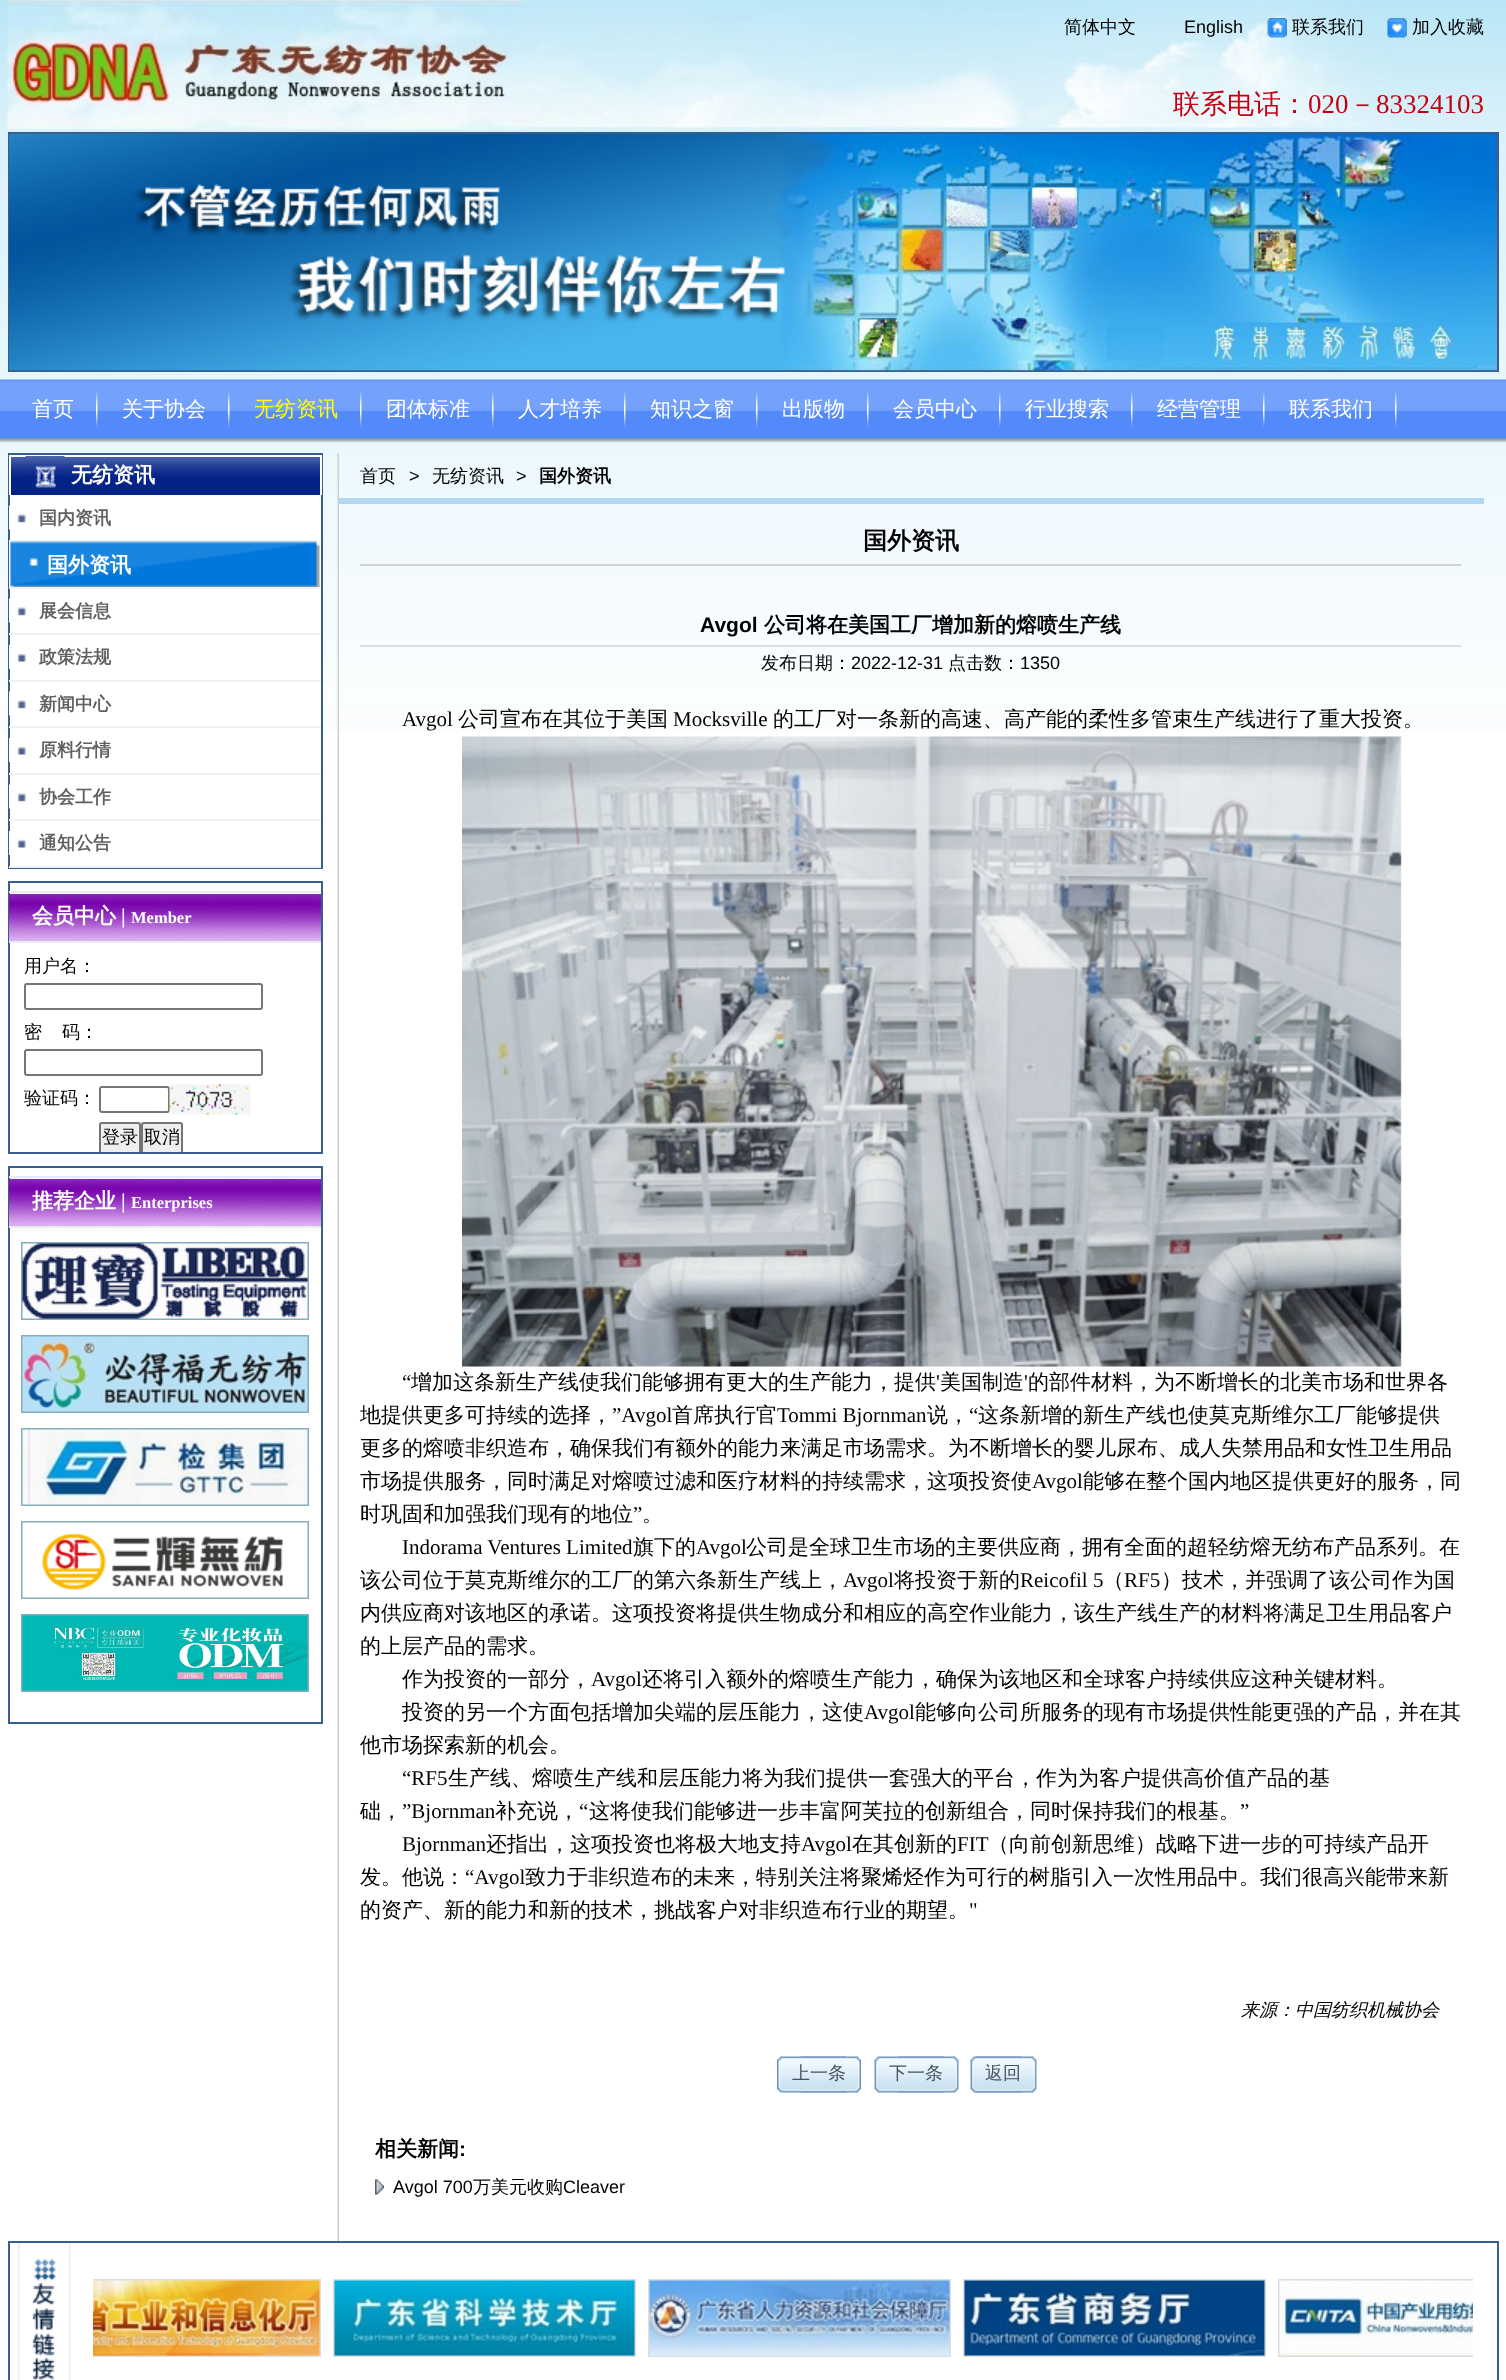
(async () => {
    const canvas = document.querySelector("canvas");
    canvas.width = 1506;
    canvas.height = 2380;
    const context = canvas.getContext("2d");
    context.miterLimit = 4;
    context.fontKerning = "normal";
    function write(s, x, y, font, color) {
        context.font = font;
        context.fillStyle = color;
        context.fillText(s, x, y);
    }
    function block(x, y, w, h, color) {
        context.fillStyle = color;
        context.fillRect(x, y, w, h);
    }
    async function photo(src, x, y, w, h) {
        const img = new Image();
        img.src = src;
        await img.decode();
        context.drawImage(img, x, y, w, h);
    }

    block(0, 0, 1506, 2380, "rgb(255, 255, 255)");
    await photo("media/1.png", 0, 0, 1506, 732);
    await photo("media/2.png", 525, 0, 865, 132);
    await photo("media/3.png", 7, 0, 518, 132);
    write("简体中文", 1064, 33, "500 18px WenQuanYi Zen Hei", "rgb(0, 0, 0)");
    write("English", 1184, 33, "18px Liberation Sans", "rgb(0, 0, 0)");
    await photo("media/4.png", 1267, 18, 20, 20);
    write("联系我们", 1292, 33, "500 18px WenQuanYi Zen Hei", "rgb(0, 0, 0)");
    await photo("media/5.png", 1387, 18, 20, 20);
    write("加入收藏", 1412, 33, "500 18px WenQuanYi Zen Hei", "rgb(0, 0, 0)");
    write("联系电话：", 1173, 113, "500 27px WenQuanYi Zen Hei", "rgb(198, 0, 19)");
    write("020", 1308, 113, "27px Liberation Serif", "rgb(198, 0, 19)");
    write("－", 1349, 113, "500 27px WenQuanYi Zen Hei", "rgb(198, 0, 19)");
    write("83324103", 1376, 113, "27px Liberation Serif", "rgb(198, 0, 19)");
    context.strokeStyle = "rgb(55, 95, 141)";
    context.lineWidth = 2;
    context.strokeRect(9, 133, 1489, 238);
    await photo("media/6.png", 9, 133, 1488, 238);
    await photo("media/7.png", 96, 381, 2, 57);
    write("首页", 32, 416, "500 21px WenQuanYi Zen Hei", "rgb(255, 255, 255)");
    await photo("media/7.png", 228, 381, 2, 57);
    write("关于协会", 122, 416, "500 21px WenQuanYi Zen Hei", "rgb(255, 255, 255)");
    await photo("media/7.png", 360, 381, 2, 57);
    write("无纺资讯", 254, 416, "500 21px WenQuanYi Zen Hei", "rgb(255, 255, 0)");
    await photo("media/7.png", 492, 381, 2, 57);
    write("团体标准", 386, 416, "500 21px WenQuanYi Zen Hei", "rgb(255, 255, 255)");
    await photo("media/7.png", 624, 381, 2, 57);
    write("人才培养", 518, 416, "500 21px WenQuanYi Zen Hei", "rgb(255, 255, 255)");
    await photo("media/7.png", 756, 381, 2, 57);
    write("知识之窗", 650, 416, "500 21px WenQuanYi Zen Hei", "rgb(255, 255, 255)");
    await photo("media/7.png", 867, 381, 2, 57);
    write("出版物", 782, 416, "500 21px WenQuanYi Zen Hei", "rgb(255, 255, 255)");
    await photo("media/7.png", 999, 381, 2, 57);
    write("会员中心", 893, 416, "500 21px WenQuanYi Zen Hei", "rgb(255, 255, 255)");
    await photo("media/7.png", 1131, 381, 2, 57);
    write("行业搜索", 1025, 416, "500 21px WenQuanYi Zen Hei", "rgb(255, 255, 255)");
    await photo("media/7.png", 1263, 381, 2, 57);
    write("经营管理", 1157, 416, "500 21px WenQuanYi Zen Hei", "rgb(255, 255, 255)");
    await photo("media/7.png", 1395, 381, 2, 57);
    write("联系我们", 1289, 416, "500 21px WenQuanYi Zen Hei", "rgb(255, 255, 255)");
    await photo("media/8.png", 337, 453, 2, 1788);
    block(10, 495, 311, 237, "rgb(255, 255, 255)");
    context.strokeRect(9, 454, 313, 414);
    await photo("media/9.png", 11, 457, 309, 38);
    block(9, 455, 312, 2, "rgb(255, 255, 255)");
    block(320, 455, 2, 40, "rgb(255, 255, 255)");
    block(9, 455, 2, 40, "rgb(255, 255, 255)");
    await photo("media/10.png", 25, 456, 40, 32);
    write("无纺资讯", 71, 482, "bold 21px WenQuanYi Zen Hei", "rgb(255, 255, 255)");
    await photo("media/11.png", 9, 505, 17, 25);
    block(9, 540, 312, 2, "rgb(239, 242, 245)");
    write("国内资讯", 39, 524, "bold 18px WenQuanYi Zen Hei", "rgb(96, 96, 96)");
    await photo("media/12.png", 9, 541, 311, 46);
    block(9, 587, 312, 2, "rgb(239, 242, 245)");
    write("国外资讯", 47, 572, "bold 21px WenQuanYi Zen Hei", "rgb(255, 255, 255)");
    await photo("media/11.png", 9, 598, 17, 25);
    block(9, 633, 312, 2, "rgb(239, 242, 245)");
    write("展会信息", 39, 617, "bold 18px WenQuanYi Zen Hei", "rgb(96, 96, 96)");
    await photo("media/13.png", 9, 645, 17, 24);
    block(9, 680, 312, 2, "rgb(239, 242, 245)");
    write("政策法规", 39, 663, "bold 18px WenQuanYi Zen Hei", "rgb(96, 96, 96)");
    await photo("media/11.png", 9, 691, 17, 25);
    block(9, 726, 312, 2, "rgb(239, 242, 245)");
    write("新闻中心", 39, 710, "bold 18px WenQuanYi Zen Hei", "rgb(96, 96, 96)");
    await photo("media/13.png", 9, 738, 17, 24);
    block(9, 773, 312, 2, "rgb(239, 242, 245)");
    write("原料行情", 39, 756, "bold 18px WenQuanYi Zen Hei", "rgb(96, 96, 96)");
    await photo("media/11.png", 9, 784, 17, 25);
    block(9, 819, 312, 2, "rgb(239, 242, 245)");
    write("协会工作", 39, 803, "bold 18px WenQuanYi Zen Hei", "rgb(96, 96, 96)");
    await photo("media/13.png", 9, 831, 17, 24);
    block(9, 866, 312, 2, "rgb(239, 242, 245)");
    write("通知公告", 39, 849, "bold 18px WenQuanYi Zen Hei", "rgb(96, 96, 96)");
    context.strokeRect(9, 882, 313, 271);
    await photo("media/14.png", 9, 894, 312, 47);
    block(9, 891, 312, 2, "rgb(232, 236, 241)");
    block(9, 941, 312, 2, "rgb(232, 236, 241)");
    write("会员中心", 32, 923, "bold 21px WenQuanYi Zen Hei", "rgb(255, 255, 255)");
    write("|", 121, 923, "bold 21px Liberation Serif", "rgb(255, 255, 255)");
    write("Member", 131, 923, "bold 16.5px Liberation Serif", "rgb(255, 255, 255)");
    write("用户名：", 24, 972, "500 18px WenQuanYi Zen Hei", "rgb(0, 0, 0)");
    context.beginPath();
    context.roundRect(25, 984, 237, 25, 2);
    context.strokeStyle = "rgb(118, 118, 118)";
    context.stroke();
    write("密", 24, 1038, "500 18px WenQuanYi Zen Hei", "rgb(0, 0, 0)");
    write("码：", 62, 1038, "500 18px WenQuanYi Zen Hei", "rgb(0, 0, 0)");
    context.beginPath();
    context.roundRect(25, 1050, 237, 25, 2);
    context.stroke();
    write("验证码：", 24, 1104, "500 18px WenQuanYi Zen Hei", "rgb(0, 0, 0)");
    context.beginPath();
    context.roundRect(100, 1087, 69, 25, 2);
    context.stroke();
    await photo("media/15.png", 169, 1084, 82, 31);
    context.fillStyle = "rgb(239, 239, 239)";
    context.beginPath();
    context.roundRect(99, 1122, 42, 30, [3, 3, 0, 0]);
    context.fill();
    context.save();
    context.beginPath();
    context.rect(9, 942, 312, 210);
    context.clip();
    context.beginPath();
    context.roundRect(100, 1123, 40, 31, 2);
    context.stroke();
    context.restore();
    write("登录", 102, 1143, "500 18px WenQuanYi Zen Hei", "rgb(0, 0, 0)");
    context.fillStyle = "rgb(239, 239, 239)";
    context.beginPath();
    context.roundRect(141, 1122, 42, 30, [3, 3, 0, 0]);
    context.fill();
    context.save();
    context.beginPath();
    context.rect(9, 942, 312, 210);
    context.clip();
    context.beginPath();
    context.roundRect(142, 1123, 40, 31, 2);
    context.stroke();
    context.restore();
    write("取消", 144, 1143, "500 18px WenQuanYi Zen Hei", "rgb(0, 0, 0)");
    context.strokeStyle = "rgb(55, 95, 141)";
    context.strokeRect(9, 1167, 313, 556);
    await photo("media/16.png", 9, 1179, 312, 47);
    block(9, 1176, 312, 2, "rgb(232, 236, 241)");
    block(9, 1226, 312, 2, "rgb(232, 236, 241)");
    write("推荐企业", 32, 1208, "bold 21px WenQuanYi Zen Hei", "rgb(255, 255, 255)");
    write("|", 121, 1208, "bold 21px Liberation Serif", "rgb(255, 255, 255)");
    write("Enterprises", 131, 1208, "bold 16.5px Liberation Serif", "rgb(255, 255, 255)");
    context.strokeStyle = "rgb(133, 173, 188)";
    context.strokeRect(22, 1243, 286, 76);
    await photo("media/17.png", 22, 1243, 286, 76);
    context.strokeRect(22, 1336, 286, 76);
    await photo("media/18.png", 22, 1336, 286, 76);
    context.strokeRect(22, 1429, 286, 76);
    await photo("media/19.png", 22, 1429, 286, 76);
    context.strokeRect(22, 1522, 286, 76);
    await photo("media/20.png", 22, 1522, 286, 76);
    context.strokeRect(22, 1615, 286, 76);
    await photo("media/21.png", 22, 1615, 286, 76);
    block(338, 498, 1146, 6, "rgb(180, 215, 240)");
    write("首页", 360, 482, "500 18px WenQuanYi Zen Hei", "rgb(0, 0, 0)");
    write(">", 409, 482, "18px Liberation Sans", "rgb(0, 0, 0)");
    write("无纺资讯", 432, 482, "500 18px WenQuanYi Zen Hei", "rgb(0, 0, 0)");
    write(">", 516, 482, "18px Liberation Sans", "rgb(0, 0, 0)");
    write("国外资讯", 539, 482, "bold 18px WenQuanYi Zen Hei", "rgb(0, 0, 0)");
    block(360, 564, 1101, 2, "rgb(208, 208, 208)");
    write("国外资讯", 863, 549, "bold 24px WenQuanYi Zen Hei", "rgb(0, 0, 0)");
    block(360, 645, 1101, 2, "rgb(221, 221, 221)");
    write("Avgol", 700, 632, "bold 21px Liberation Sans", "rgb(0, 0, 0)");
    write("公司将在美国⼯⼚增加新的熔喷⽣产线", 764, 632, "bold 21px WenQuanYi Zen Hei", "rgb(0, 0, 0)");
    write("发布日期：", 761, 669, "500 18px WenQuanYi Zen Hei", "rgb(0, 0, 0)");
    write("2022-12-31", 851, 669, "18px Liberation Sans", "rgb(0, 0, 0)");
    write("点击数：", 948, 669, "500 18px WenQuanYi Zen Hei", "rgb(0, 0, 0)");
    write("1350", 1020, 669, "18px Liberation Sans", "rgb(0, 0, 0)");
    write("Avgol", 402, 726, "21px Liberation Serif", "rgb(0, 0, 0)");
    write("公司宣布在其位于美国", 458, 726, "500 21px WenQuanYi Zen Hei", "rgb(0, 0, 0)");
    write("Mocksville", 673, 726, "21px Liberation Serif", "rgb(0, 0, 0)");
    write("的⼯⼚对⼀条新的⾼速、⾼产能的柔性多管束⽣产线进⾏了重⼤投资。", 773, 726, "500 21px WenQuanYi Zen Hei", "rgb(0, 0, 0)");
    await photo("media/22.png", 462, 736, 940, 631);
    write("“", 402, 1389, "21px Liberation Serif", "rgb(0, 0, 0)");
    write("增加这条新⽣产线使我们能够拥有更⼤的⽣产能⼒，提供", 411, 1389, "500 21px WenQuanYi Zen Hei", "rgb(0, 0, 0)");
    write("'", 936, 1389, "21px Liberation Serif", "rgb(0, 0, 0)");
    write("美国制造", 940, 1389, "500 21px WenQuanYi Zen Hei", "rgb(0, 0, 0)");
    write("'", 1024, 1389, "21px Liberation Serif", "rgb(0, 0, 0)");
    write("的部件材料，为不断增⻓的北美市场和世界各", 1028, 1389, "500 21px WenQuanYi Zen Hei", "rgb(0, 0, 0)");
    write("地提供更多可持续的选择，", 360, 1422, "500 21px WenQuanYi Zen Hei", "rgb(0, 0, 0)");
    write("”Avgol", 612, 1422, "21px Liberation Serif", "rgb(0, 0, 0)");
    write("⾸席执⾏官", 672, 1422, "500 21px WenQuanYi Zen Hei", "rgb(0, 0, 0)");
    write("Tommi Bjornman", 777, 1422, "21px Liberation Serif", "rgb(0, 0, 0)");
    write("说，", 927, 1422, "500 21px WenQuanYi Zen Hei", "rgb(0, 0, 0)");
    write("“", 969, 1422, "21px Liberation Serif", "rgb(0, 0, 0)");
    write("这条新增的新⽣产线也使莫克斯维尔⼯⼚能够提供", 978, 1422, "500 21px WenQuanYi Zen Hei", "rgb(0, 0, 0)");
    write("更多的熔喷⾮织造布，确保我们有额外的能⼒来满⾜市场需求。为不断增⻓的婴⼉尿布、成⼈失禁⽤品和⼥性卫⽣⽤品", 360, 1455, "500 21px WenQuanYi Zen Hei", "rgb(0, 0, 0)");
    write("市场提供服务，同时满⾜对熔喷过滤和医疗材料的持续需求，这项投资使", 360, 1488, "500 21px WenQuanYi Zen Hei", "rgb(0, 0, 0)");
    write("Avgol", 1032, 1488, "21px Liberation Serif", "rgb(0, 0, 0)");
    write("能够在整个国内地区提供更好的服务，同", 1083, 1488, "500 21px WenQuanYi Zen Hei", "rgb(0, 0, 0)");
    write("时巩固和加强我们现有的地位", 360, 1521, "500 21px WenQuanYi Zen Hei", "rgb(0, 0, 0)");
    write("”", 633, 1521, "21px Liberation Serif", "rgb(0, 0, 0)");
    write("。", 642, 1521, "500 21px WenQuanYi Zen Hei", "rgb(0, 0, 0)");
    write("Indorama Ventures Limited", 402, 1554, "21px Liberation Serif", "rgb(0, 0, 0)");
    write("旗下的", 633, 1554, "500 21px WenQuanYi Zen Hei", "rgb(0, 0, 0)");
    write("Avgol", 696, 1554, "21px Liberation Serif", "rgb(0, 0, 0)");
    write("公司是全球卫⽣市场的主要供应商，拥有全⾯的超轻纺熔⽆纺布产品系列。在", 746, 1554, "500 21px WenQuanYi Zen Hei", "rgb(0, 0, 0)");
    write("该公司位于莫克斯维尔的⼯⼚的第六条新⽣产线上，", 360, 1587, "500 21px WenQuanYi Zen Hei", "rgb(0, 0, 0)");
    write("Avgol", 843, 1587, "21px Liberation Serif", "rgb(0, 0, 0)");
    write("将投资于新的", 894, 1587, "500 21px WenQuanYi Zen Hei", "rgb(0, 0, 0)");
    write("Reicofil 5", 1020, 1587, "21px Liberation Serif", "rgb(0, 0, 0)");
    write("（", 1103, 1587, "500 21px WenQuanYi Zen Hei", "rgb(0, 0, 0)");
    write("RF5", 1124, 1587, "21px Liberation Serif", "rgb(0, 0, 0)");
    write("）技术，并强调了该公司作为国", 1161, 1587, "500 21px WenQuanYi Zen Hei", "rgb(0, 0, 0)");
    write("内供应商对该地区的承诺。这项投资将提供⽣物成分和相应的⾼空作业能⼒，该⽣产线⽣产的材料将满⾜卫⽣⽤品客户", 360, 1620, "500 21px WenQuanYi Zen Hei", "rgb(0, 0, 0)");
    write("的上层产品的需求。", 360, 1653, "500 21px WenQuanYi Zen Hei", "rgb(0, 0, 0)");
    write("作为投资的⼀部分，", 402, 1686, "500 21px WenQuanYi Zen Hei", "rgb(0, 0, 0)");
    write("Avgol", 591, 1686, "21px Liberation Serif", "rgb(0, 0, 0)");
    write("还将引⼊额外的熔喷⽣产能⼒，确保为该地区和全球客户持续供应这种关键材料。", 642, 1686, "500 21px WenQuanYi Zen Hei", "rgb(0, 0, 0)");
    write("投资的另⼀个⽅⾯包括增加尖端的层压能⼒，这使", 402, 1719, "500 21px WenQuanYi Zen Hei", "rgb(0, 0, 0)");
    write("Avgol", 864, 1719, "21px Liberation Serif", "rgb(0, 0, 0)");
    write("能够向公司所服务的现有市场提供性能更强的产品，并在其", 915, 1719, "500 21px WenQuanYi Zen Hei", "rgb(0, 0, 0)");
    write("他市场探索新的机会。", 360, 1752, "500 21px WenQuanYi Zen Hei", "rgb(0, 0, 0)");
    write("“RF5", 402, 1785, "21px Liberation Serif", "rgb(0, 0, 0)");
    write("⽣产线、熔喷⽣产线和层压能⼒将为我们提供⼀套强⼤的平台，作为为客户提供⾼价值产品的基", 448, 1785, "500 21px WenQuanYi Zen Hei", "rgb(0, 0, 0)");
    write("础，", 360, 1818, "500 21px WenQuanYi Zen Hei", "rgb(0, 0, 0)");
    write("”Bjornman", 402, 1818, "21px Liberation Serif", "rgb(0, 0, 0)");
    write("补充说，", 495, 1818, "500 21px WenQuanYi Zen Hei", "rgb(0, 0, 0)");
    write("“", 579, 1818, "21px Liberation Serif", "rgb(0, 0, 0)");
    write("这将使我们能够进⼀步丰富阿芙拉的创新组合，同时保持我们的根基。", 589, 1818, "500 21px WenQuanYi Zen Hei", "rgb(0, 0, 0)");
    write("”", 1240, 1818, "21px Liberation Serif", "rgb(0, 0, 0)");
    write("Bjornman", 402, 1851, "21px Liberation Serif", "rgb(0, 0, 0)");
    write("还指出，这项投资也将极⼤地⽀持", 486, 1851, "500 21px WenQuanYi Zen Hei", "rgb(0, 0, 0)");
    write("Avgol", 801, 1851, "21px Liberation Serif", "rgb(0, 0, 0)");
    write("在其创新的", 852, 1851, "500 21px WenQuanYi Zen Hei", "rgb(0, 0, 0)");
    write("FIT", 957, 1851, "21px Liberation Serif", "rgb(0, 0, 0)");
    write("（向前创新思维）战略下进⼀步的可持续产品开", 988, 1851, "500 21px WenQuanYi Zen Hei", "rgb(0, 0, 0)");
    write("发。他说：", 360, 1884, "500 21px WenQuanYi Zen Hei", "rgb(0, 0, 0)");
    write("“Avgol", 465, 1884, "21px Liberation Serif", "rgb(0, 0, 0)");
    write("致⼒于⾮织造布的未来，特别关注将聚烯烃作为可⾏的树脂引⼊⼀次性⽤品中。我们很⾼兴能带来新", 525, 1884, "500 21px WenQuanYi Zen Hei", "rgb(0, 0, 0)");
    write("的资产、新的能⼒和新的技术，挑战客户对⾮织造布⾏业的期望。", 360, 1917, "500 21px WenQuanYi Zen Hei", "rgb(0, 0, 0)");
    write("\"", 969, 1917, "21px Liberation Serif", "rgb(0, 0, 0)");
    write("来源：中国纺织机械协会", 1241, 2016, "italic 500 18px WenQuanYi Zen Hei", "rgb(0, 0, 0)");
    await photo("media/23.png", 800, 2056, 61, 37);
    await photo("media/24.png", 777, 2056, 69, 37);
    write("上一条", 792, 2079, "500 18px WenQuanYi Zen Hei", "rgb(68, 85, 96)");
    await photo("media/25.png", 898, 2056, 61, 37);
    await photo("media/26.png", 874, 2056, 70, 37);
    write("下一条", 889, 2079, "500 18px WenQuanYi Zen Hei", "rgb(68, 85, 96)");
    await photo("media/25.png", 976, 2056, 61, 37);
    await photo("media/27.png", 970, 2056, 52, 37);
    write("返回", 985, 2079, "500 18px WenQuanYi Zen Hei", "rgb(68, 85, 96)");
    write("相关新闻", 375, 2156, "bold 21px WenQuanYi Zen Hei", "rgb(0, 0, 0)");
    write(":", 459, 2156, "bold 21px Liberation Sans", "rgb(0, 0, 0)");
    await photo("media/28.png", 375, 2179, 9, 16);
    write("Avgol 700", 393, 2193, "18px Liberation Sans", "rgb(0, 0, 0)");
    write("万美元收购", 473, 2193, "500 18px WenQuanYi Zen Hei", "rgb(0, 0, 0)");
    write("Cleaver", 563, 2193, "18px Liberation Sans", "rgb(0, 0, 0)");
    await photo("media/29.png", 18, 2243, 53, 137);
    context.strokeStyle = "rgb(55, 95, 141)";
    context.strokeRect(9, 2242, 1489, 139);
    context.save();
    context.beginPath();
    context.rect(93, 2279, 1380, 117);
    context.clip();
    context.strokeStyle = "rgb(221, 221, 221)";
    context.strokeRect(19, 2280, 301, 76);
    context.restore();
    await photo("media/30.png", 93, 2280, 227, 76);
    context.strokeStyle = "rgb(221, 221, 221)";
    context.strokeRect(334, 2280, 301, 76);
    await photo("media/31.png", 334, 2280, 301, 76);
    context.strokeRect(649, 2280, 301, 76);
    await photo("media/32.png", 649, 2280, 301, 76);
    context.strokeRect(964, 2280, 301, 76);
    await photo("media/33.png", 964, 2280, 301, 76);
    context.save();
    context.beginPath();
    context.rect(93, 2279, 1380, 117);
    context.clip();
    context.strokeRect(1279, 2280, 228, 76);
    context.restore();
    await photo("media/34.png", 1279, 2280, 194, 76);
})();
